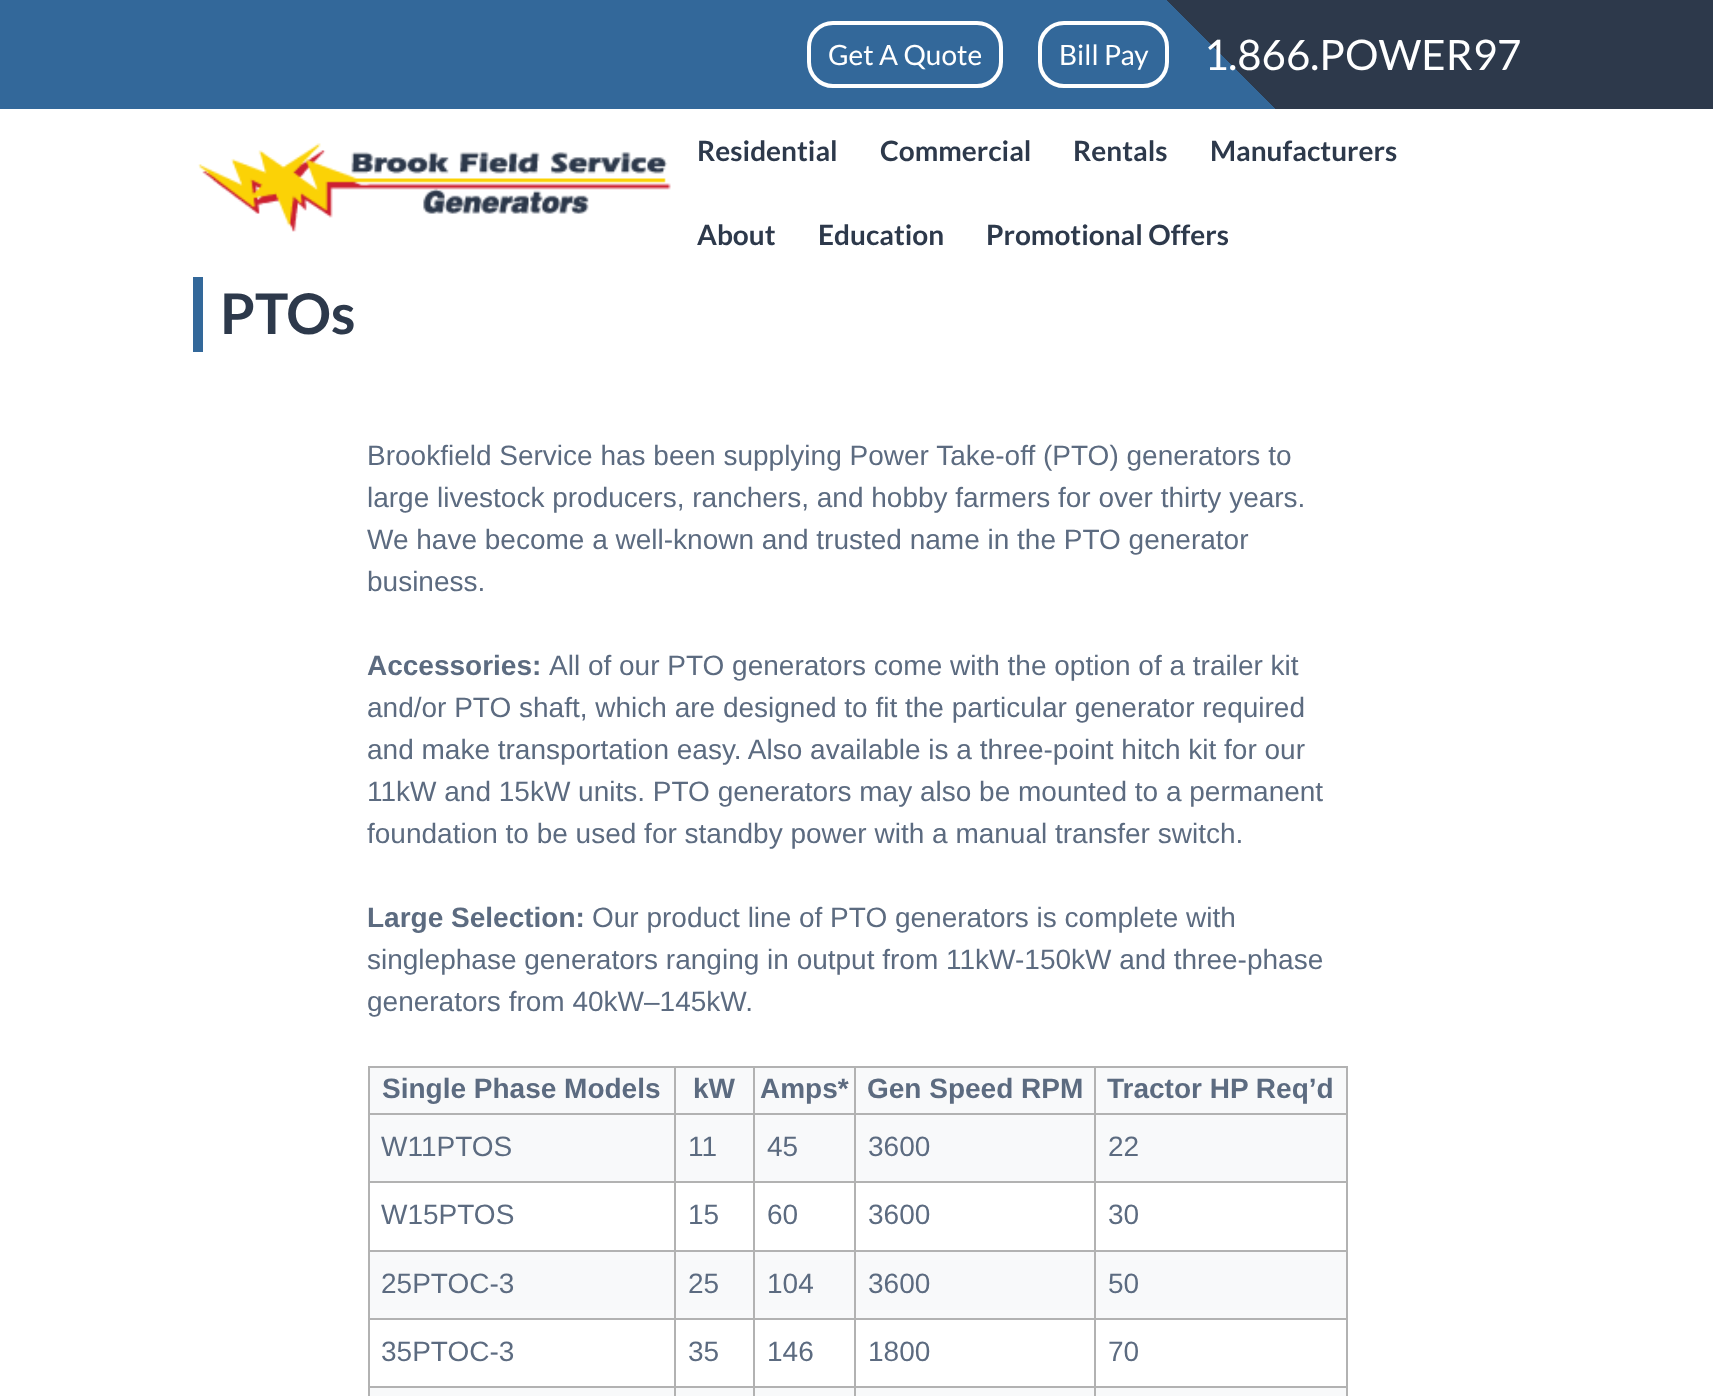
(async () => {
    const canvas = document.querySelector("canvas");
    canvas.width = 1713;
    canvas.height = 1396;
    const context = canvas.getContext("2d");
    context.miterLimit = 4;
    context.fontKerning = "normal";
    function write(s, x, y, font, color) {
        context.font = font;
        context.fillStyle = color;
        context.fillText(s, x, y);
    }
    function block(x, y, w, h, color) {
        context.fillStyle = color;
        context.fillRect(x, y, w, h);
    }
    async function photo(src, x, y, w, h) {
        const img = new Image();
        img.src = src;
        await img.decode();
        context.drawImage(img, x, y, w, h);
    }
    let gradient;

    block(0, 0, 1713, 1396, "rgb(255, 255, 255)");
    gradient = context.createLinearGradient(1312, -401, 401, 510);
    gradient.addColorStop(0.3, "rgb(45, 57, 75)");
    gradient.addColorStop(0.3, "rgb(51, 104, 154)");
    context.fillStyle = gradient;
    context.fillRect(0, 0, 1713, 109);
    context.beginPath();
    context.roundRect(809, 23, 192, 63, 24);
    context.strokeStyle = "rgb(255, 255, 255)";
    context.lineWidth = 4;
    context.stroke();
    write("Get A Quote", 828, 65, "28px Lato", "rgb(255, 255, 255)");
    context.beginPath();
    context.roundRect(1040, 23, 127, 63, 24);
    context.stroke();
    write("Bill Pay", 1059, 65, "28px Lato", "rgb(255, 255, 255)");
    write("1.866.POWER97", 1204, 70, "42px Lato", "rgb(255, 255, 255)");
    await photo("media/1.png", 198, 143, 473, 89);
    write("Residential", 697, 161, "bold 28px Lato", "rgb(45, 57, 75)");
    write("Commercial", 880, 161, "bold 28px Lato", "rgb(45, 57, 75)");
    write("Rentals", 1073, 161, "bold 28px Lato", "rgb(45, 57, 75)");
    write("Manufacturers", 1210, 161, "bold 28px Lato", "rgb(45, 57, 75)");
    write("About", 697, 245, "bold 28px Lato", "rgb(45, 57, 75)");
    write("Education", 818, 245, "bold 28px Lato", "rgb(45, 57, 75)");
    write("Promotional Offers", 986, 245, "bold 28px Lato", "rgb(45, 57, 75)");
    block(193, 277, 10, 75, "rgb(51, 104, 154)");
    write("PTOs", 220, 334, "bold 56px Lato", "rgb(45, 57, 75)");
    write("Brookfield Service has been supplying Power Take-off (PTO) generators to", 367, 465, "28px Liberation Sans", "rgb(92, 107, 128)");
    write("large livestock producers, ranchers, and hobby farmers for over thirty years.", 367, 507, "28px Liberation Sans", "rgb(92, 107, 128)");
    write("We have become a well-known and trusted name in the PTO generator", 367, 549, "28px Liberation Sans", "rgb(92, 107, 128)");
    write("business.", 367, 591, "28px Liberation Sans", "rgb(92, 107, 128)");
    write("Accessories:", 367, 675, "bold 28px Liberation Sans", "rgb(92, 107, 128)");
    write("All of our PTO generators come with the option of a trailer kit", 549, 675, "28px Liberation Sans", "rgb(92, 107, 128)");
    write("and/or PTO shaft, which are designed to fit the particular generator required", 367, 717, "28px Liberation Sans", "rgb(92, 107, 128)");
    write("and make transportation easy. Also available is a three-point hitch kit for our", 367, 759, "28px Liberation Sans", "rgb(92, 107, 128)");
    write("11kW and 15kW units. PTO generators may also be mounted to a permanent", 367, 801, "28px Liberation Sans", "rgb(92, 107, 128)");
    write("foundation to be used for standby power with a manual transfer switch.", 367, 843, "28px Liberation Sans", "rgb(92, 107, 128)");
    write("Large Selection:", 367, 927, "bold 28px Liberation Sans", "rgb(92, 107, 128)");
    write("Our product line of PTO generators is complete with", 592, 927, "28px Liberation Sans", "rgb(92, 107, 128)");
    write("singlephase generators ranging in output from 11kW-150kW and three-phase", 367, 969, "28px Liberation Sans", "rgb(92, 107, 128)");
    write("generators from 40kW–145kW.", 367, 1011, "28px Liberation Sans", "rgb(92, 107, 128)");
    block(368, 1066, 980, 2, "rgb(178, 178, 178)");
    block(1346, 1066, 2, 330, "rgb(178, 178, 178)");
    block(368, 1066, 2, 330, "rgb(178, 178, 178)");
    block(370, 1388, 976, 8, "rgb(248, 249, 250)");
    block(368, 1113, 980, 2, "rgb(178, 178, 178)");
    block(370, 1115, 976, 66, "rgb(248, 249, 250)");
    block(368, 1181, 980, 2, "rgb(178, 178, 178)");
    block(368, 1250, 980, 2, "rgb(178, 178, 178)");
    block(370, 1252, 976, 66, "rgb(248, 249, 250)");
    block(368, 1318, 980, 2, "rgb(178, 178, 178)");
    block(368, 1386, 980, 2, "rgb(178, 178, 178)");
    block(674, 1066, 2, 330, "rgb(178, 178, 178)");
    block(753, 1066, 2, 330, "rgb(178, 178, 178)");
    block(854, 1066, 2, 330, "rgb(178, 178, 178)");
    block(1094, 1066, 2, 330, "rgb(178, 178, 178)");
    block(370, 1068, 304, 45, "rgb(248, 249, 250)");
    write("Single Phase Models", 382, 1098, "bold 28px Liberation Sans", "rgb(92, 107, 128)");
    block(676, 1068, 77, 45, "rgb(248, 249, 250)");
    write("kW", 693, 1098, "bold 28px Liberation Sans", "rgb(92, 107, 128)");
    block(755, 1068, 99, 45, "rgb(248, 249, 250)");
    write("Amps*", 760, 1098, "bold 28px Liberation Sans", "rgb(92, 107, 128)");
    block(856, 1068, 238, 45, "rgb(248, 249, 250)");
    write("Gen Speed RPM", 867, 1098, "bold 28px Liberation Sans", "rgb(92, 107, 128)");
    block(1096, 1068, 250, 45, "rgb(248, 249, 250)");
    write("Tractor HP Req’d", 1107, 1098, "bold 28px Liberation Sans", "rgb(92, 107, 128)");
    write("W11PTOS", 381, 1156, "28px Liberation Sans", "rgb(92, 107, 128)");
    write("11", 688, 1156, "28px Liberation Sans", "rgb(92, 107, 128)");
    write("45", 767, 1156, "28px Liberation Sans", "rgb(92, 107, 128)");
    write("3600", 868, 1156, "28px Liberation Sans", "rgb(92, 107, 128)");
    write("22", 1108, 1156, "28px Liberation Sans", "rgb(92, 107, 128)");
    write("W15PTOS", 381, 1224, "28px Liberation Sans", "rgb(92, 107, 128)");
    write("15", 688, 1224, "28px Liberation Sans", "rgb(92, 107, 128)");
    write("60", 767, 1224, "28px Liberation Sans", "rgb(92, 107, 128)");
    write("3600", 868, 1224, "28px Liberation Sans", "rgb(92, 107, 128)");
    write("30", 1108, 1224, "28px Liberation Sans", "rgb(92, 107, 128)");
    write("25PTOC-3", 381, 1293, "28px Liberation Sans", "rgb(92, 107, 128)");
    write("25", 688, 1293, "28px Liberation Sans", "rgb(92, 107, 128)");
    write("104", 767, 1293, "28px Liberation Sans", "rgb(92, 107, 128)");
    write("3600", 868, 1293, "28px Liberation Sans", "rgb(92, 107, 128)");
    write("50", 1108, 1293, "28px Liberation Sans", "rgb(92, 107, 128)");
    write("35PTOC-3", 381, 1361, "28px Liberation Sans", "rgb(92, 107, 128)");
    write("35", 688, 1361, "28px Liberation Sans", "rgb(92, 107, 128)");
    write("146", 767, 1361, "28px Liberation Sans", "rgb(92, 107, 128)");
    write("1800", 868, 1361, "28px Liberation Sans", "rgb(92, 107, 128)");
    write("70", 1108, 1361, "28px Liberation Sans", "rgb(92, 107, 128)");
})();
